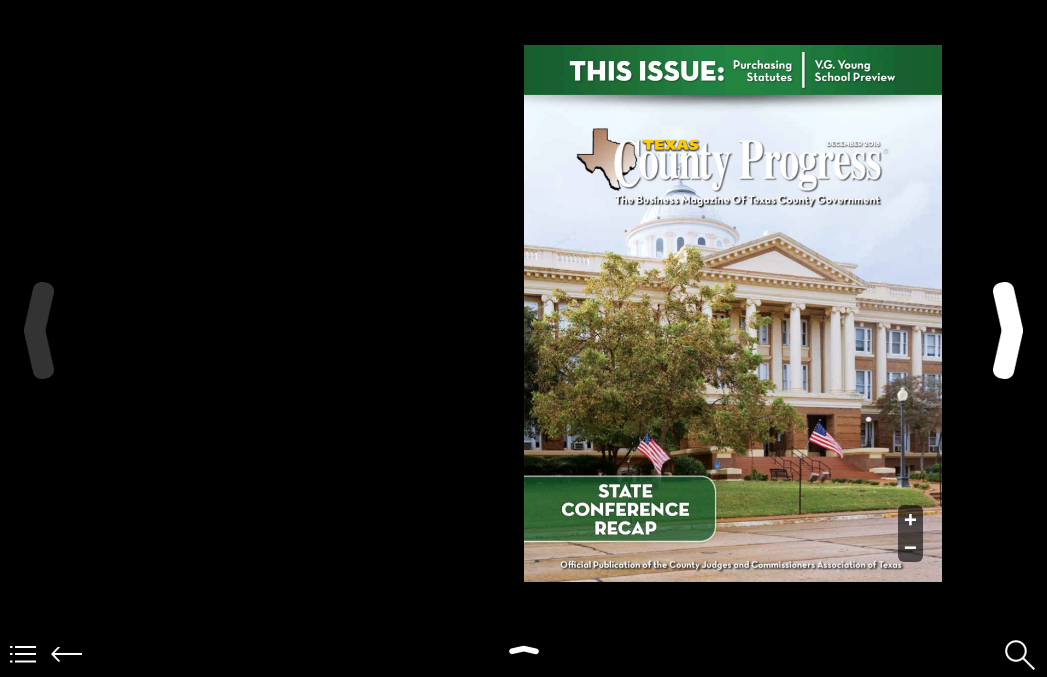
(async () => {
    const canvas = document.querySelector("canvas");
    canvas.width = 1047;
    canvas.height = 677;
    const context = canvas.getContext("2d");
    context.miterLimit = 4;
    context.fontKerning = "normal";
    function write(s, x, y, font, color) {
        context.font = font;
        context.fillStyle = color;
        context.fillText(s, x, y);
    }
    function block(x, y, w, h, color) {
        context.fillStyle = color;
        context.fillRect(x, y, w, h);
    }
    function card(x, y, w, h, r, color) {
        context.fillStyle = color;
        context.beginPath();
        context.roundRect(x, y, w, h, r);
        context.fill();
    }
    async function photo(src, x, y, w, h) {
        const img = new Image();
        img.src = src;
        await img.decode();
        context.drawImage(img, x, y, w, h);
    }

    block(0, 0, 1047, 677, "rgb(0, 0, 0)");
    await photo("media/1.png", 24, 282, 30, 97);
    await photo("media/2.png", 993, 282, 30, 97);
    await photo("media/3.png", 524, 45, 418, 537);
    card(898, 505, 25, 57, 6, "rgba(0, 0, 0, 0.6)");
    write("+", 904, 527, "bold 22px Liberation Sans", "rgb(255, 255, 255)");
    write("−", 904, 555, "bold 22px Liberation Sans", "rgb(255, 255, 255)");
    await photo("media/4.png", 10, 646, 26, 17);
    await photo("media/5.png", 51, 647, 31, 15);
    await photo("media/6.png", 1005, 640, 30, 30);
    await photo("media/7.png", 509, 645, 30, 10);
})();
